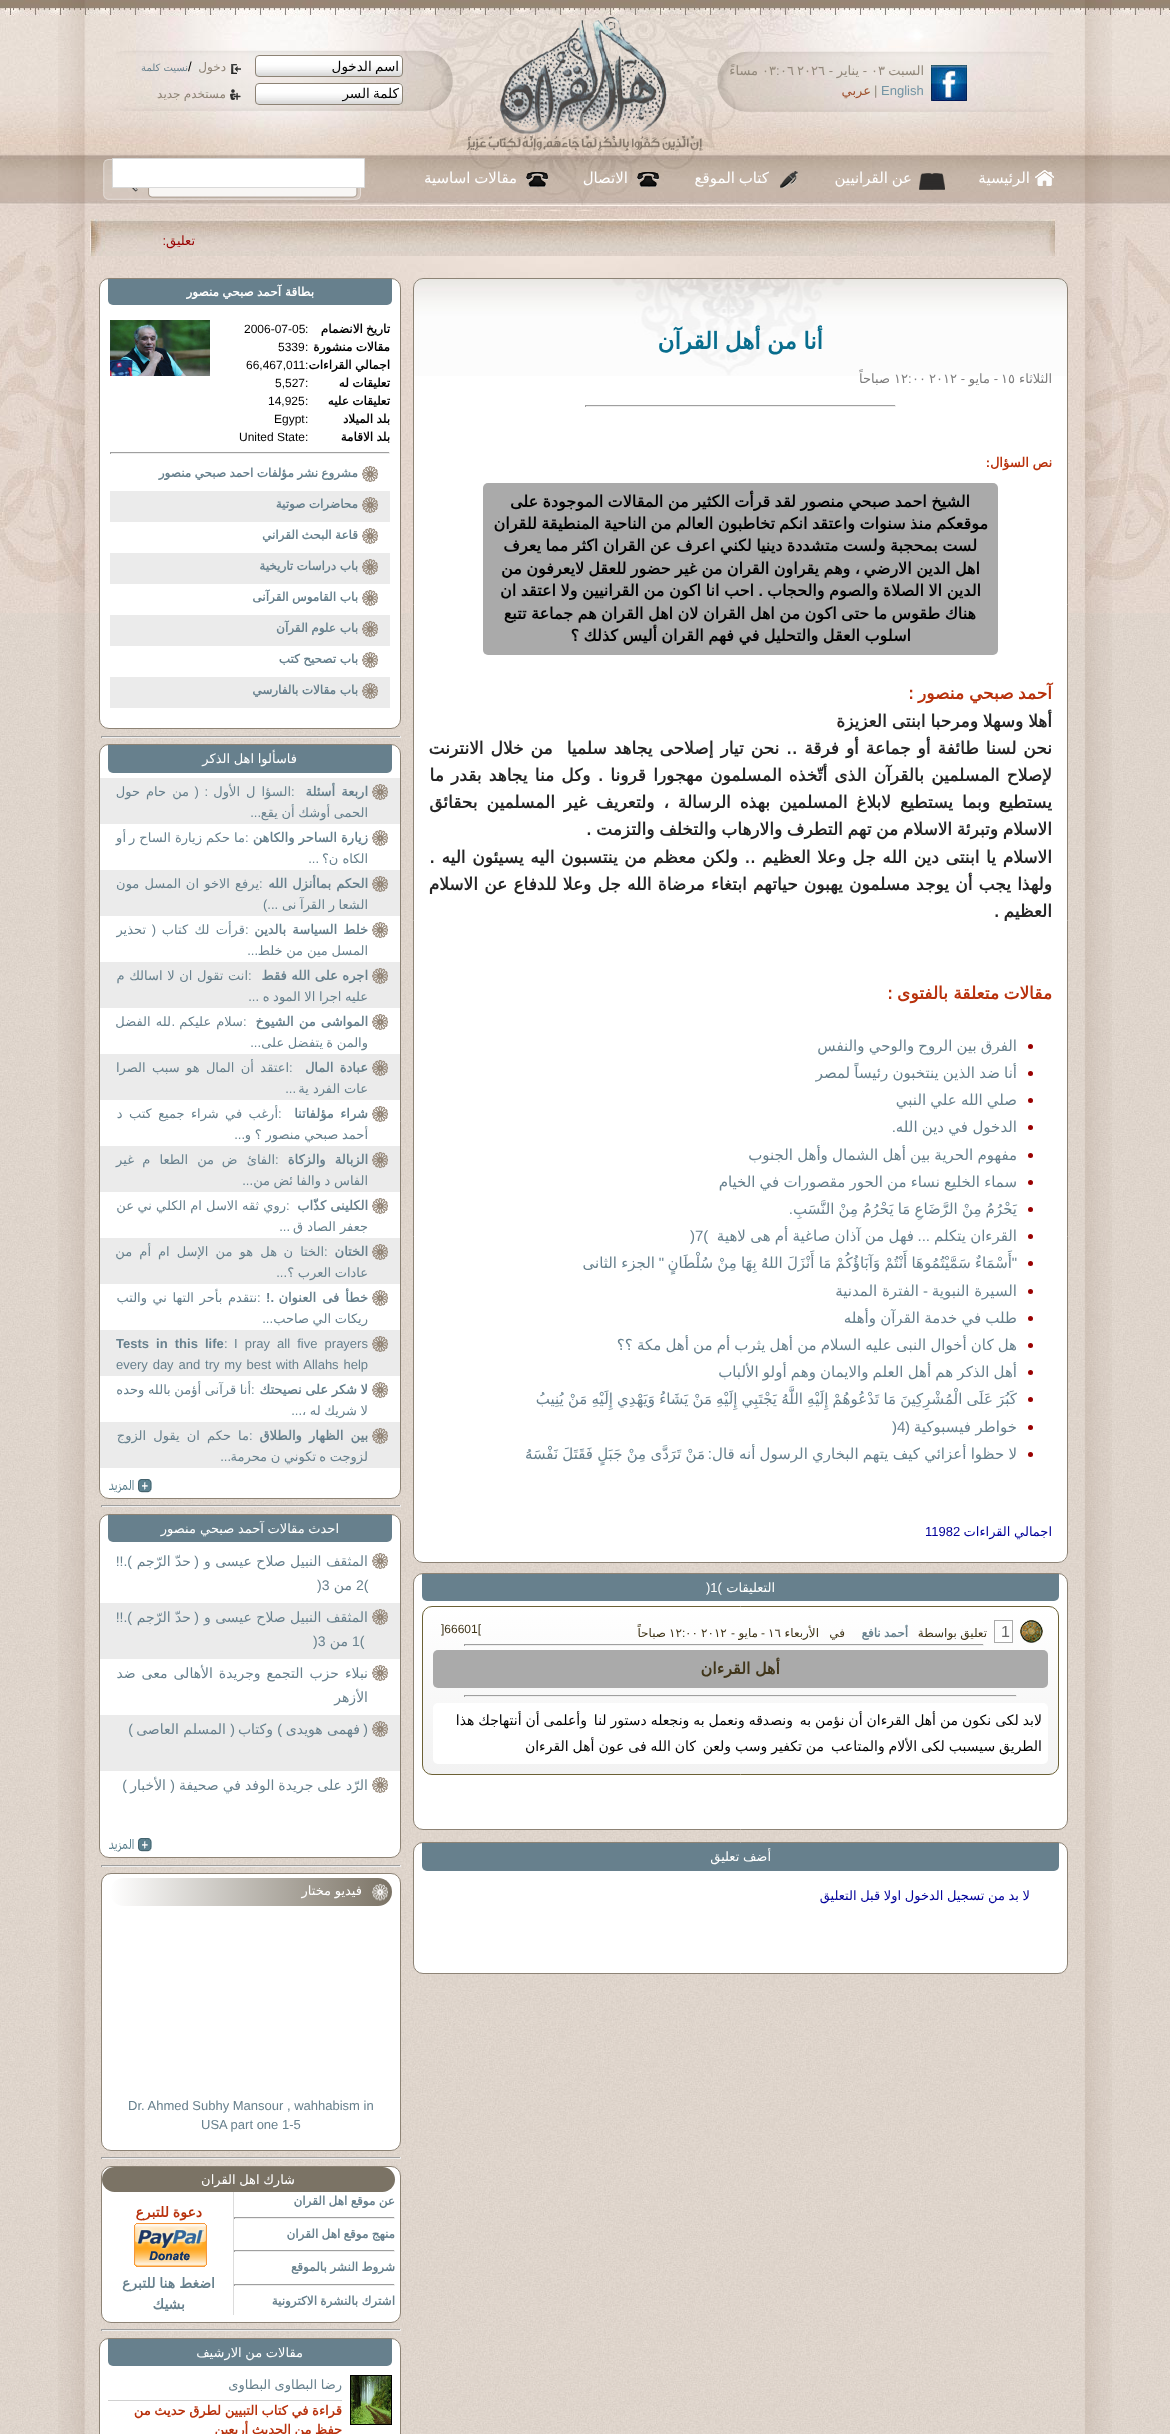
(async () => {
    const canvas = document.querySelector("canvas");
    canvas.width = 1170;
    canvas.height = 2434;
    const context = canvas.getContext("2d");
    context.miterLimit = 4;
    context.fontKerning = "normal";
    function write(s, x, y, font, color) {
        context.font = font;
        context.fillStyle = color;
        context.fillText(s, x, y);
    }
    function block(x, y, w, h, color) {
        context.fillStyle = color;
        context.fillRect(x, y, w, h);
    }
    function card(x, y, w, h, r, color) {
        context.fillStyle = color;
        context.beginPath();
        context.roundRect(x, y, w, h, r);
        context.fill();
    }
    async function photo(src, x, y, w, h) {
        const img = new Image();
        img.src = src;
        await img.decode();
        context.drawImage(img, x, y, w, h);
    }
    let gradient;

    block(0, 0, 1170, 2434, "rgb(255, 255, 255)");
    await photo("media/1.png", 0, 613, 1170, 1821);
    await photo("media/2.png", 0, 0, 1170, 613);
    await photo("media/3.png", 58, 0, 1054, 2434);
    await photo("media/4.png", 717, 51, 337, 61);
    await photo("media/5.png", 931, 65, 36, 36);
    context.direction = "rtl";
    write("السبت", 924, 75, "13px DejaVu Sans", "rgb(146, 136, 123)");
    context.direction = "ltr";
    write("٠٣", 871, 75, "13px DejaVu Sans", "rgb(146, 136, 123)");
    context.direction = "rtl";
    write("-", 867, 75, "13px Liberation Sans", "rgb(146, 136, 123)");
    write("يناير", 859, 75, "13px DejaVu Sans", "rgb(146, 136, 123)");
    write("-", 833, 75, "13px Liberation Sans", "rgb(146, 136, 123)");
    context.direction = "ltr";
    write("٢٠٢٦", 797, 75, "13px DejaVu Sans", "rgb(146, 136, 123)");
    write("٠٦", 780, 75, "13px DejaVu Sans", "rgb(146, 136, 123)");
    write(":", 776, 75, "13px Liberation Sans", "rgb(146, 136, 123)");
    write("٠٣", 762, 75, "13px DejaVu Sans", "rgb(146, 136, 123)");
    context.direction = "rtl";
    write("مساءً", 758, 75, "13px DejaVu Sans", "rgb(146, 136, 123)");
    context.direction = "ltr";
    write("English", 881, 95, "13px Liberation Sans", "rgb(116, 147, 164)");
    write("|", 874, 95, "13px Liberation Sans", "rgb(146, 136, 123)");
    context.direction = "rtl";
    write("عربي", 871, 95, "13px DejaVu Sans", "rgb(157, 77, 42)");
    await photo("media/6.png", 466, 17, 237, 134);
    await photo("media/7.png", 116, 50, 337, 61);
    await photo("media/8.png", 255, 55, 148, 21);
    context.beginPath();
    context.roundRect(255.5, 55.5, 147, 21, 3.5);
    context.strokeStyle = "rgb(141, 131, 117)";
    context.stroke();
    context.save();
    context.beginPath();
    context.rect(259, 59, 140, 15);
    context.clip();
    context.wordSpacing = "-1px";
    write("اسم الدخول", 399, 71, "13.5px DejaVu Sans", "rgb(0, 0, 0)");
    context.restore();
    await photo("media/9.png", 231, 64, 10, 10);
    write("دخول", 226, 71, "12px DejaVu Sans", "rgb(141, 131, 117)");
    context.direction = "ltr";
    write("/", 188, 71, "13px Liberation Sans", "rgb(0, 0, 0)");
    context.direction = "rtl";
    write("نسيت كلمة", 188, 71, "10px DejaVu Sans", "rgb(103, 128, 141)");
    await photo("media/10.png", 255, 83, 148, 22);
    context.beginPath();
    context.roundRect(255.5, 83.5, 147, 21, 3.5);
    context.stroke();
    context.wordSpacing = "-1px";
    write("كلمة السر", 399, 98, "13.5px DejaVu Sans", "rgb(0, 0, 0)");
    await photo("media/11.png", 230, 89, 11, 11);
    context.wordSpacing = "-0.5px";
    write("مستخدم جديد", 226, 98, "12px DejaVu Sans", "rgb(141, 131, 117)");
    await photo("media/12.png", 1035, 170, 19, 16);
    context.wordSpacing = "0px";
    write("الرئيسية", 1030, 183, "15px DejaVu Sans", "rgb(255, 255, 255)");
    await photo("media/13.png", 919, 173, 26, 17);
    context.wordSpacing = "-1px";
    write("عن القرانيين", 912, 183, "15px DejaVu Sans", "rgb(255, 255, 255)");
    await photo("media/14.png", 780, 171, 18, 17);
    write("كتاب الموقع", 769, 183, "15px DejaVu Sans", "rgb(255, 255, 255)");
    await photo("media/15.png", 637, 172, 22, 15);
    context.wordSpacing = "0px";
    write("الاتصال", 628, 183, "15px DejaVu Sans", "rgb(255, 255, 255)");
    await photo("media/16.png", 526, 172, 22, 15);
    context.wordSpacing = "-1px";
    write("مقالات اساسية", 517, 183, "15px DejaVu Sans", "rgb(255, 255, 255)");
    await photo("media/17.png", 103, 159, 258, 41);
    context.beginPath();
    context.rect(112.5, 158.5, 252, 29);
    context.fill();
    context.strokeStyle = "rgb(217, 217, 217)";
    context.stroke();
    await photo("media/18.png", 90, 219, 965, 37);
    context.wordSpacing = "0px";
    write("تعليق", 195, 245, "13px DejaVu Sans", "rgb(153, 0, 0)");
    write(":", 166, 245, "13px Liberation Sans", "rgb(153, 0, 0)");
    card(413, 278, 655, 1285, 10, "rgb(255, 255, 255)");
    await photo("media/19.png", 413, 279, 655, 97);
    context.beginPath();
    context.roundRect(413.5, 278.5, 654, 1284, 9.5);
    context.strokeStyle = "rgb(141, 131, 117)";
    context.stroke();
    context.wordSpacing = "-1px";
    write("أنا من أهل القرآن", 823, 349, "bold 23px DejaVu Sans", "rgb(8, 109, 141)");
    context.wordSpacing = "0px";
    write("الثلاثاء", 1052, 383, "13px DejaVu Sans", "rgb(126, 126, 126)");
    context.direction = "ltr";
    write("١٥", 1001, 383, "13px DejaVu Sans", "rgb(126, 126, 126)");
    context.direction = "rtl";
    write("-", 998, 383, "13px Liberation Sans", "rgb(126, 126, 126)");
    write("مايو", 990, 383, "13px DejaVu Sans", "rgb(126, 126, 126)");
    write("-", 965, 383, "13px Liberation Sans", "rgb(126, 126, 126)");
    context.direction = "ltr";
    write("٢٠١٢", 929, 383, "13px DejaVu Sans", "rgb(126, 126, 126)");
    write("٠٠", 912, 383, "13px DejaVu Sans", "rgb(126, 126, 126)");
    write(":", 908, 383, "13px Liberation Sans", "rgb(126, 126, 126)");
    write("١٢", 894, 383, "13px DejaVu Sans", "rgb(126, 126, 126)");
    context.direction = "rtl";
    write("صباحاً", 890, 383, "13px DejaVu Sans", "rgb(126, 126, 126)");
    block(585, 405, 311, 1, "rgb(159, 159, 159)");
    block(895, 405, 1, 2, "rgb(238, 238, 238)");
    block(585, 406, 311, 1, "rgb(238, 238, 238)");
    block(585, 405, 1, 2, "rgb(159, 159, 159)");
    context.wordSpacing = "-0.5px";
    write("نص السؤال", 1052, 467, "bold 13px DejaVu Sans", "rgb(184, 49, 12)");
    context.wordSpacing = "0px";
    write(":", 990, 467, "bold 13px Liberation Sans", "rgb(184, 49, 12)");
    card(483, 483, 515, 172, 5, "rgb(170, 170, 170)");
    context.wordSpacing = "-0.6px";
    write("الشيخ احمد صبحي منصور لقد قرأت الكثير من المقالات الموجودة على", 970, 507, "bold 16px DejaVu Sans", "rgb(0, 0, 0)");
    write("موقعكم منذ سنوات", 988, 529, "bold 16px DejaVu Sans", "rgb(0, 0, 0)");
    write("واعتقد انكم", 855, 529, "bold 16px DejaVu Sans", "rgb(0, 0, 0)");
    write("تخاطبون العالم من الناحية المنطيقة للقران", 775, 529, "bold 16px DejaVu Sans", "rgb(0, 0, 0)");
    write("لست بمحجبة ولست متشددة دينيا لكني اعرف عن القران اكثر مما يعرف", 977, 551, "bold 16px DejaVu Sans", "rgb(0, 0, 0)");
    write("اهل الدين الارضي", 980, 574, "bold 16px DejaVu Sans", "rgb(0, 0, 0)");
    write("، وهم يقراون القران من غير حضور للعقل", 860, 574, "bold 16px DejaVu Sans", "rgb(0, 0, 0)");
    write("لايعرفون من", 584, 574, "bold 16px DejaVu Sans", "rgb(0, 0, 0)");
    context.wordSpacing = "-0.5px";
    write("الدين الا الصلاة والصوم والحجاب", 981, 596, "bold 16px DejaVu Sans", "rgb(0, 0, 0)");
    context.wordSpacing = "0px";
    write(".", 763, 596, "bold 16px Liberation Sans", "rgb(0, 0, 0)");
    context.wordSpacing = "-0.5px";
    write("احب انا اكون من القرانيين ولا اعتقد ان", 754, 596, "bold 16px DejaVu Sans", "rgb(0, 0, 0)");
    context.wordSpacing = "-0.6px";
    write("هناك طقوس ما حتى اكون من اهل القران لان اهل القران هم جماعة تتبع", 976, 619, "bold 16px DejaVu Sans", "rgb(0, 0, 0)");
    write("اسلوب العقل والتحليل في فهم القران", 911, 641, "bold 16px DejaVu Sans", "rgb(0, 0, 0)");
    write("أليس كذلك ؟", 657, 641, "bold 16px DejaVu Sans", "rgb(0, 0, 0)");
    context.wordSpacing = "-1px";
    write("آحمد صبحي", 1052, 699, "bold 17px DejaVu Sans", "rgb(184, 49, 12)");
    context.wordSpacing = "0px";
    write("منصور", 964, 699, "bold 17px DejaVu Sans", "rgb(184, 49, 12)");
    context.direction = "ltr";
    write(":", 908, 699, "bold 17px DejaVu Sans", "rgb(184, 49, 12)");
    context.wordSpacing = "-0.5px";
    context.direction = "rtl";
    write("أهلا وسهلا ومرحبا ابنتى العزيزة", 1052, 727, "bold 17px DejaVu Sans", "rgb(38, 38, 38)");
    context.wordSpacing = "1.6px";
    write("نحن لسنا طائفة أو جماعة أو فرقة .. نحن تيار إصلاحى يجاهد سلميا  من خلال الانترنت", 1052, 754, "bold 17px DejaVu Sans", "rgb(38, 38, 38)");
    context.wordSpacing = "1.8px";
    write("لإصلاح المسلمين بالقرآن الذى أتّخذه المسلمون مهجورا قرونا . وكل منا يجاهد بقدر ما", 1052, 781, "bold 17px DejaVu Sans", "rgb(38, 38, 38)");
    context.wordSpacing = "3.5px";
    write("يستطيع وبما يستطيع لابلاغ المسلمين بهذه الرسالة ، ولتعريف غير المسلمين بحقائق", 1052, 808, "bold 17px DejaVu Sans", "rgb(38, 38, 38)");
    context.wordSpacing = "-0.75px";
    write("الاسلام وتبرئة الاسلام من تهم التطرف والارهاب والتخلف والتزمت .", 1052, 835, "bold 17px DejaVu Sans", "rgb(38, 38, 38)");
    context.wordSpacing = "1.25px";
    write("الاسلام يا ابنتى دين الله جل وعلا العظيم .. ولكن معظم من ينتسبون اليه يسيئون اليه .", 1052, 863, "bold 17px DejaVu Sans", "rgb(38, 38, 38)");
    context.wordSpacing = "0.75px";
    write("ولهذا يجب أن يوجد مسلمون يهبون حياتهم ابتغاء مرضاة الله جل وعلا للدفاع عن الاسلام", 1052, 890, "bold 17px DejaVu Sans", "rgb(38, 38, 38)");
    context.wordSpacing = "-1px";
    write("العظيم .", 1052, 917, "bold 17px DejaVu Sans", "rgb(38, 38, 38)");
    write("مقالات متعلقة", 1052, 999, "bold 17px DejaVu Sans", "rgb(184, 49, 12)");
    context.wordSpacing = "0px";
    write("بالفتوى", 948, 999, "bold 17px DejaVu Sans", "rgb(184, 49, 12)");
    context.direction = "ltr";
    write(":", 887, 999, "bold 17px DejaVu Sans", "rgb(184, 49, 12)");
    context.fillStyle = "rgb(153, 0, 0)";
    context.beginPath();
    context.arc(1030.5, 1046.5, 2.5, 0, Math.PI * 2);
    context.fill();
    context.wordSpacing = "-0.6px";
    context.direction = "rtl";
    write("الفرق بين الروح والوحي والنفس", 1017, 1051, "15px DejaVu Sans", "rgb(103, 128, 141)");
    context.fillStyle = "rgb(153, 0, 0)";
    context.beginPath();
    context.arc(1030.5, 1073.5, 2.5, 0, Math.PI * 2);
    context.fill();
    write("أنا ضد", 1017, 1078, "15px DejaVu Sans", "rgb(103, 128, 141)");
    write("الذين ينتخبون رئيساً لمصر", 975, 1078, "15px DejaVu Sans", "rgb(103, 128, 141)");
    context.fillStyle = "rgb(153, 0, 0)";
    context.beginPath();
    context.arc(1030.5, 1100.5, 2.5, 0, Math.PI * 2);
    context.fill();
    write("صلي الله علي النبي", 1017, 1105, "15px DejaVu Sans", "rgb(103, 128, 141)");
    context.fillStyle = "rgb(153, 0, 0)";
    context.beginPath();
    context.arc(1030.5, 1127.5, 2.5, 0, Math.PI * 2);
    context.fill();
    context.wordSpacing = "0px";
    write("الدخول", 1017, 1132, "15px DejaVu Sans", "rgb(103, 128, 141)");
    write("في", 968, 1132, "15px DejaVu Sans", "rgb(103, 128, 141)");
    context.wordSpacing = "-0.6px";
    write("دين الله", 944, 1132, "15px DejaVu Sans", "rgb(103, 128, 141)");
    context.wordSpacing = "0px";
    write(".", 896, 1132, "15px Liberation Sans", "rgb(103, 128, 141)");
    context.fillStyle = "rgb(153, 0, 0)";
    context.beginPath();
    context.arc(1030.5, 1155.5, 2.5, 0, Math.PI * 2);
    context.fill();
    context.wordSpacing = "-0.6px";
    write("مفهوم الحرية بين أهل الشمال وأهل الجنوب", 1017, 1160, "15px DejaVu Sans", "rgb(103, 128, 141)");
    context.fillStyle = "rgb(153, 0, 0)";
    context.beginPath();
    context.arc(1030.5, 1182.5, 2.5, 0, Math.PI * 2);
    context.fill();
    write("سماء الخليع نساء من الحور مقصورات في الخيام", 1017, 1187, "15px DejaVu Sans", "rgb(103, 128, 141)");
    context.fillStyle = "rgb(153, 0, 0)";
    context.beginPath();
    context.arc(1030.5, 1209.5, 2.5, 0, Math.PI * 2);
    context.fill();
    write("يَحْرُمُ مِنْ الرَّضَاعِ مَا يَحْرُمُ مِنْ النَّسَبِ", 1017, 1214, "15px DejaVu Sans", "rgb(103, 128, 141)");
    context.wordSpacing = "0px";
    write(".", 793, 1214, "15px Liberation Sans", "rgb(103, 128, 141)");
    context.fillStyle = "rgb(153, 0, 0)";
    context.beginPath();
    context.arc(1030.5, 1236.5, 2.5, 0, Math.PI * 2);
    context.fill();
    context.wordSpacing = "-0.5px";
    write("القرءان يتكلم", 1017, 1241, "15px DejaVu Sans", "rgb(103, 128, 141)");
    write("فهل من آذان صاغية أم هى لاهية", 914, 1241, "15px DejaVu Sans", "rgb(103, 128, 141)");
    context.wordSpacing = "0px";
    context.direction = "ltr";
    write(")7(", 690, 1241, "15px Liberation Sans", "rgb(103, 128, 141)");
    context.direction = "rtl";
    write("...", 930, 1241, "15px Liberation Sans", "rgb(103, 128, 141)");
    write("\"", 1017, 1268, "15px Liberation Sans", "rgb(103, 128, 141)");
    context.wordSpacing = "-0.5px";
    write("أَسْمَاءٌ سَمَّيْتُمُوهَا أَنْتُمْ وَآبَاؤُكُمْ مَا أَنْزَلَ اللهُ بِهَا مِنْ سُلْطَانٍ", 1012, 1268, "15px DejaVu Sans", "rgb(103, 128, 141)");
    context.wordSpacing = "0px";
    write("\"", 664, 1268, "15px Liberation Sans", "rgb(103, 128, 141)");
    context.wordSpacing = "-0.5px";
    write("الجزء الثانى", 655, 1268, "15px DejaVu Sans", "rgb(103, 128, 141)");
    context.fillStyle = "rgb(153, 0, 0)";
    context.beginPath();
    context.arc(1030.5, 1263.5, 2.5, 0, Math.PI * 2);
    context.fill();
    context.beginPath();
    context.arc(1030.5, 1291.5, 2.5, 0, Math.PI * 2);
    context.fill();
    context.wordSpacing = "0px";
    write("السيرة النبوية", 1017, 1296, "15px DejaVu Sans", "rgb(103, 128, 141)");
    write("-", 928, 1296, "15px Liberation Sans", "rgb(103, 128, 141)");
    write("الفترة المدنية", 919, 1296, "15px DejaVu Sans", "rgb(103, 128, 141)");
    context.fillStyle = "rgb(153, 0, 0)";
    context.beginPath();
    context.arc(1030.5, 1318.5, 2.5, 0, Math.PI * 2);
    context.fill();
    context.wordSpacing = "-0.6px";
    write("طلب في خدمة القرآن وأهله", 1017, 1323, "15px DejaVu Sans", "rgb(103, 128, 141)");
    context.fillStyle = "rgb(153, 0, 0)";
    context.beginPath();
    context.arc(1030.5, 1345.5, 2.5, 0, Math.PI * 2);
    context.fill();
    write("هل كان أخوال النبى عليه السلام من أهل يثرب أم من أهل مكة ؟؟", 1017, 1350, "15px DejaVu Sans", "rgb(103, 128, 141)");
    context.fillStyle = "rgb(153, 0, 0)";
    context.beginPath();
    context.arc(1030.5, 1372.5, 2.5, 0, Math.PI * 2);
    context.fill();
    write("أهل الذكر هم أهل العلم والايمان وهم أولو الألباب", 1017, 1377, "15px DejaVu Sans", "rgb(103, 128, 141)");
    context.fillStyle = "rgb(153, 0, 0)";
    context.beginPath();
    context.arc(1030.5, 1399.5, 2.5, 0, Math.PI * 2);
    context.fill();
    write("كَبُرَ عَلَى الْمُشْرِكِينَ مَا تَدْعُوهُمْ إِلَيْهِ اللَّهُ يَجْتَبِي إِلَيْهِ مَنْ يَشَاءُ وَيَهْدِي إِلَيْهِ مَنْ يُنِيبُ", 1017, 1404, "15px DejaVu Sans", "rgb(103, 128, 141)");
    context.fillStyle = "rgb(153, 0, 0)";
    context.beginPath();
    context.arc(1030.5, 1427.5, 2.5, 0, Math.PI * 2);
    context.fill();
    context.wordSpacing = "0px";
    write("خواطر فيسبوكية", 1017, 1432, "15px DejaVu Sans", "rgb(103, 128, 141)");
    write("(", 910, 1432, "15px Liberation Sans", "rgb(103, 128, 141)");
    context.direction = "ltr";
    write(")4", 892, 1432, "15px Liberation Sans", "rgb(103, 128, 141)");
    context.fillStyle = "rgb(153, 0, 0)";
    context.beginPath();
    context.arc(1030.5, 1454.5, 2.5, 0, Math.PI * 2);
    context.fill();
    context.wordSpacing = "-0.5px";
    context.direction = "rtl";
    write("لا حظوا أعزائي كيف يتهم البخاري الرسول أنه قال", 1017, 1459, "15px DejaVu Sans", "rgb(103, 128, 141)");
    context.wordSpacing = "0px";
    write(":", 712, 1459, "15px Liberation Sans", "rgb(103, 128, 141)");
    context.wordSpacing = "-0.5px";
    write("مَنْ تَرَدَّى مِنْ جَبَلٍ فَقَتَلَ نَفْسَهُ", 705, 1459, "15px DejaVu Sans", "rgb(103, 128, 141)");
    write("اجمالي القراءات", 1052, 1536, "13px DejaVu Sans", "rgb(0, 0, 153)");
    context.wordSpacing = "0px";
    context.direction = "ltr";
    write("11982", 925, 1536, "13px Liberation Sans", "rgb(0, 0, 153)");
    context.fillStyle = "rgb(255, 255, 255)";
    context.beginPath();
    context.roundRect(413.5, 1573.5, 654, 256, 9.5);
    context.fill();
    context.stroke();
    context.fillStyle = "rgb(103, 128, 141)";
    context.beginPath();
    context.roundRect(422, 1574, 637, 27, [0, 0, 5, 5]);
    context.fill();
    context.direction = "rtl";
    write("التعليقات", 775, 1592, "13px DejaVu Sans", "rgb(255, 255, 255)");
    context.direction = "ltr";
    write(")1(", 706, 1592, "13px Liberation Sans", "rgb(255, 255, 255)");
    context.save();
    context.beginPath();
    context.roundRect(422, 1606, 637, 169, 10);
    context.clip();
    gradient = context.createLinearGradient(741, 1607, 741, 1774);
    gradient.addColorStop(0, "rgb(255, 255, 255)");
    gradient.addColorStop(1, "rgb(242, 242, 242)");
    context.fillStyle = gradient;
    context.fillRect(422, 1607, 637, 167);
    context.restore();
    context.beginPath();
    context.roundRect(422.5, 1606.5, 636, 168, 9.5);
    context.strokeStyle = "rgb(108, 97, 53)";
    context.stroke();
    await photo("media/20.png", 1020, 1620, 23, 23);
    write("1", 1001, 1637, "16px Liberation Sans", "rgb(102, 102, 102)");
    block(995, 1639, 6, 4, "rgb(255, 255, 255)");
    block(994, 1620, 19, 1, "rgb(170, 170, 170)");
    block(994, 1642, 7, 1, "rgb(170, 170, 170)");
    block(994, 1620, 1, 23, "rgb(170, 170, 170)");
    block(1001, 1639, 11, 3, "rgb(255, 255, 255)");
    block(1012, 1620, 1, 23, "rgb(170, 170, 170)");
    block(1001, 1642, 12, 1, "rgb(170, 170, 170)");
    context.wordSpacing = "-0.5px";
    context.direction = "rtl";
    write("تعليق بواسطة", 987, 1637, "12px DejaVu Sans", "rgb(63, 52, 24)");
    write("أحمد نافع", 908, 1637, "bold 12px DejaVu Sans", "rgb(103, 128, 141)");
    context.wordSpacing = "0px";
    write("في", 845, 1637, "12px DejaVu Sans", "rgb(63, 52, 24)");
    write("الأربعاء", 819, 1637, "12px DejaVu Sans", "rgb(63, 52, 24)");
    context.direction = "ltr";
    write("١٦", 768, 1637, "12px DejaVu Sans", "rgb(63, 52, 24)");
    context.direction = "rtl";
    write("-", 765, 1637, "12px Liberation Sans", "rgb(63, 52, 24)");
    write("مايو", 758, 1637, "12px DejaVu Sans", "rgb(63, 52, 24)");
    write("-", 735, 1637, "12px Liberation Sans", "rgb(63, 52, 24)");
    context.direction = "ltr";
    write("٢٠١٢", 701, 1637, "12px DejaVu Sans", "rgb(63, 52, 24)");
    write("٠٠", 685, 1637, "12px DejaVu Sans", "rgb(63, 52, 24)");
    write(":", 682, 1637, "12px Liberation Sans", "rgb(63, 52, 24)");
    write("١٢", 669, 1637, "12px DejaVu Sans", "rgb(63, 52, 24)");
    context.direction = "rtl";
    write("صباحاً", 666, 1637, "12px DejaVu Sans", "rgb(63, 52, 24)");
    context.direction = "ltr";
    write("]66601[", 441, 1633, "12px Liberation Sans", "rgb(63, 52, 24)");
    block(464, 1644, 520, 1, "rgb(159, 159, 159)");
    block(983, 1644, 1, 2, "rgb(238, 238, 238)");
    block(464, 1645, 520, 1, "rgb(238, 238, 238)");
    block(464, 1644, 1, 2, "rgb(159, 159, 159)");
    card(433, 1650, 615, 38, 5, "rgb(170, 170, 170)");
    context.wordSpacing = "-0.6px";
    context.direction = "rtl";
    write("أهل القرءان", 780, 1674, "bold 16px DejaVu Sans", "rgb(63, 52, 24)");
    block(464, 1695, 553, 1, "rgb(159, 159, 159)");
    block(1016, 1695, 1, 2, "rgb(238, 238, 238)");
    block(464, 1696, 553, 1, "rgb(238, 238, 238)");
    block(464, 1695, 1, 2, "rgb(159, 159, 159)");
    card(433, 1703, 615, 61, 5, "rgb(255, 255, 255)");
    context.wordSpacing = "-0.5px";
    write("لابد لكى نكون من أهل القرءان أن نؤمن به", 1042, 1725, "14px DejaVu Sans", "rgb(0, 0, 0)");
    write("ونصدقه ونعمل به ونجعله دستور لنا", 793, 1725, "14px DejaVu Sans", "rgb(0, 0, 0)");
    write("وأعلمى أن أنتهاجك هذا", 587, 1725, "14px DejaVu Sans", "rgb(0, 0, 0)");
    write("الطريق سيسبب لكى الألام والمتاعب", 1042, 1751, "14px DejaVu Sans", "rgb(0, 0, 0)");
    write("من تكفير وسب ولعن", 824, 1751, "14px DejaVu Sans", "rgb(0, 0, 0)");
    write("كان الله فى عون أهل القرءان", 696, 1751, "14px DejaVu Sans", "rgb(0, 0, 0)");
    context.fillStyle = "rgb(255, 255, 255)";
    context.beginPath();
    context.roundRect(413.5, 1842.5, 654, 131, 9.5);
    context.fill();
    context.strokeStyle = "rgb(141, 131, 117)";
    context.stroke();
    context.fillStyle = "rgb(103, 128, 141)";
    context.beginPath();
    context.roundRect(422, 1843, 637, 28, [0, 0, 5, 5]);
    context.fill();
    write("أضف تعليق", 771, 1861, "13px DejaVu Sans", "rgb(255, 255, 255)");
    write("لا بد من تسجيل الدخول اولا قبل التعليق", 1030, 1900, "13px DejaVu Sans", "rgb(0, 0, 153)");
    context.fillStyle = "rgb(255, 255, 255)";
    context.beginPath();
    context.roundRect(99.5, 278.5, 301, 450, 9.5);
    context.fill();
    context.stroke();
    context.fillStyle = "rgb(103, 128, 141)";
    context.beginPath();
    context.roundRect(108, 279, 284, 26, [0, 0, 5, 5]);
    context.fill();
    context.wordSpacing = "0px";
    write("بطاقة", 314, 296, "bold 12px DejaVu Sans", "rgb(255, 255, 255)");
    context.wordSpacing = "-0.5px";
    write("آحمد صبحي", 281, 296, "bold 12px DejaVu Sans", "rgb(255, 255, 255)");
    context.wordSpacing = "0px";
    write("منصور", 219, 296, "bold 12px DejaVu Sans", "rgb(255, 255, 255)");
    context.wordSpacing = "-0.5px";
    write("تاريخ الانضمام", 390, 333, "bold 12px DejaVu Sans", "rgb(0, 0, 0)");
    context.wordSpacing = "0px";
    context.direction = "ltr";
    write(":", 305, 333, "12px Liberation Sans", "rgb(0, 0, 0)");
    write("2006-07-05", 244, 333, "12px Liberation Sans", "rgb(0, 0, 0)");
    context.wordSpacing = "-0.5px";
    context.direction = "rtl";
    write("مقالات منشورة", 390, 351, "bold 12px DejaVu Sans", "rgb(0, 0, 0)");
    context.wordSpacing = "0px";
    context.direction = "ltr";
    write(":", 305, 351, "12px Liberation Sans", "rgb(0, 0, 0)");
    write("5339", 278, 351, "12px Liberation Sans", "rgb(0, 0, 0)");
    context.wordSpacing = "-0.5px";
    context.direction = "rtl";
    write("اجمالي القراءات", 390, 369, "bold 12px DejaVu Sans", "rgb(0, 0, 0)");
    context.wordSpacing = "0px";
    context.direction = "ltr";
    write(":", 305, 369, "12px Liberation Sans", "rgb(0, 0, 0)");
    write("66,467,011", 246, 369, "12px Liberation Sans", "rgb(0, 0, 0)");
    context.wordSpacing = "-0.5px";
    context.direction = "rtl";
    write("تعليقات له", 390, 387, "bold 12px DejaVu Sans", "rgb(0, 0, 0)");
    context.wordSpacing = "0px";
    context.direction = "ltr";
    write(":", 305, 387, "12px Liberation Sans", "rgb(0, 0, 0)");
    write("5,527", 275, 387, "12px Liberation Sans", "rgb(0, 0, 0)");
    context.wordSpacing = "-0.5px";
    context.direction = "rtl";
    write("تعليقات عليه", 390, 405, "bold 12px DejaVu Sans", "rgb(0, 0, 0)");
    context.wordSpacing = "0px";
    context.direction = "ltr";
    write(":", 305, 405, "12px Liberation Sans", "rgb(0, 0, 0)");
    write("14,925", 268, 405, "12px Liberation Sans", "rgb(0, 0, 0)");
    context.wordSpacing = "-0.5px";
    context.direction = "rtl";
    write("بلد الميلاد", 390, 423, "bold 12px DejaVu Sans", "rgb(0, 0, 0)");
    context.wordSpacing = "0px";
    context.direction = "ltr";
    write(":", 305, 423, "12px Liberation Sans", "rgb(0, 0, 0)");
    write("Egypt", 274, 423, "12px Liberation Sans", "rgb(0, 0, 0)");
    context.wordSpacing = "-0.5px";
    context.direction = "rtl";
    write("بلد الاقامة", 390, 441, "bold 12px DejaVu Sans", "rgb(0, 0, 0)");
    context.wordSpacing = "0px";
    context.direction = "ltr";
    write(":", 305, 441, "12px Liberation Sans", "rgb(0, 0, 0)");
    write("United State", 239, 441, "12px Liberation Sans", "rgb(0, 0, 0)");
    await photo("media/21.png", 110, 320, 100, 56);
    block(110, 452, 280, 1, "rgb(159, 159, 159)");
    block(389, 452, 1, 2, "rgb(238, 238, 238)");
    block(110, 453, 280, 1, "rgb(238, 238, 238)");
    block(110, 452, 1, 2, "rgb(159, 159, 159)");
    await photo("media/22.png", 362, 466, 16, 16);
    context.wordSpacing = "-0.5px";
    context.direction = "rtl";
    write("مشروع نشر مؤلفات احمد صبحي منصور", 358, 477, "bold 12px DejaVu Sans", "rgb(103, 128, 141)");
    block(110, 491, 280, 31, "rgb(235, 235, 235)");
    await photo("media/23.png", 362, 497, 16, 16);
    write("محاضرات صوتية", 358, 508, "bold 12px DejaVu Sans", "rgb(103, 128, 141)");
    await photo("media/22.png", 362, 528, 16, 16);
    write("قاعة البحث القراني", 358, 539, "bold 12px DejaVu Sans", "rgb(103, 128, 141)");
    block(110, 553, 280, 31, "rgb(235, 235, 235)");
    await photo("media/23.png", 362, 559, 16, 16);
    context.wordSpacing = "0px";
    write("باب", 358, 570, "bold 12px DejaVu Sans", "rgb(103, 128, 141)");
    context.wordSpacing = "-0.5px";
    write("دراسات تاريخية", 336, 570, "bold 12px DejaVu Sans", "rgb(103, 128, 141)");
    await photo("media/22.png", 362, 590, 16, 16);
    context.wordSpacing = "0px";
    write("باب", 358, 601, "bold 12px DejaVu Sans", "rgb(103, 128, 141)");
    context.wordSpacing = "-0.5px";
    write("القاموس القرآنى", 336, 601, "bold 12px DejaVu Sans", "rgb(103, 128, 141)");
    block(110, 615, 280, 31, "rgb(235, 235, 235)");
    await photo("media/23.png", 362, 621, 16, 16);
    context.wordSpacing = "0px";
    write("باب", 358, 632, "bold 12px DejaVu Sans", "rgb(103, 128, 141)");
    context.wordSpacing = "-0.5px";
    write("علوم القرآن", 336, 632, "bold 12px DejaVu Sans", "rgb(103, 128, 141)");
    await photo("media/22.png", 362, 652, 16, 16);
    context.wordSpacing = "0px";
    write("باب", 358, 663, "bold 12px DejaVu Sans", "rgb(103, 128, 141)");
    context.wordSpacing = "-0.5px";
    write("تصحيح كتب", 336, 663, "bold 12px DejaVu Sans", "rgb(103, 128, 141)");
    block(110, 677, 280, 31, "rgb(235, 235, 235)");
    await photo("media/23.png", 362, 683, 16, 16);
    context.wordSpacing = "0px";
    write("باب", 358, 694, "bold 12px DejaVu Sans", "rgb(103, 128, 141)");
    context.wordSpacing = "-0.5px";
    write("مقالات بالفارسي", 336, 694, "bold 12px DejaVu Sans", "rgb(103, 128, 141)");
    block(101, 736, 300, 1, "rgb(159, 159, 159)");
    block(400, 736, 1, 2, "rgb(238, 238, 238)");
    block(101, 737, 300, 1, "rgb(238, 238, 238)");
    block(101, 736, 1, 2, "rgb(159, 159, 159)");
    context.fillStyle = "rgb(255, 255, 255)";
    context.beginPath();
    context.roundRect(99.5, 744.5, 301, 754, 9.5);
    context.fill();
    context.stroke();
    context.fillStyle = "rgb(103, 128, 141)";
    context.beginPath();
    context.roundRect(108, 745, 284, 28, [0, 0, 5, 5]);
    context.fill();
    write("فاسألوا اهل الذكر", 297, 763, "13px DejaVu Sans", "rgb(255, 255, 255)");
    block(100, 778, 300, 46, "rgb(235, 235, 235)");
    await photo("media/23.png", 372, 784, 16, 16);
    context.wordSpacing = "2px";
    write("اربعة أسئلة", 368, 796, "bold 13px DejaVu Sans", "rgb(103, 128, 141)");
    context.wordSpacing = "0px";
    context.direction = "ltr";
    write(":", 291, 796, "13px Liberation Sans", "rgb(103, 128, 141)");
    context.wordSpacing = "2px";
    context.direction = "rtl";
    write("السؤا ل", 291, 796, "13px DejaVu Sans", "rgb(103, 128, 141)");
    context.wordSpacing = "0px";
    write("الأول", 240, 796, "13px DejaVu Sans", "rgb(103, 128, 141)");
    context.wordSpacing = "2px";
    write(": (", 208, 796, "13px Liberation Sans", "rgb(103, 128, 141)");
    context.wordSpacing = "0px";
    write("من", 189, 796, "13px DejaVu Sans", "rgb(103, 128, 141)");
    write("حام", 166, 796, "13px DejaVu Sans", "rgb(103, 128, 141)");
    write("حول", 140, 796, "13px DejaVu Sans", "rgb(103, 128, 141)");
    context.wordSpacing = "-0.5px";
    write("الحمى أوشك أن يقع", 368, 817, "13px DejaVu Sans", "rgb(103, 128, 141)");
    context.wordSpacing = "0px";
    write("...", 261, 817, "13px Liberation Sans", "rgb(103, 128, 141)");
    await photo("media/22.png", 372, 830, 16, 16);
    write("زيارة الساحر والكاهن", 368, 842, "bold 13px DejaVu Sans", "rgb(103, 128, 141)");
    context.direction = "ltr";
    write(":", 245, 842, "13px Liberation Sans", "rgb(103, 128, 141)");
    context.direction = "rtl";
    write("ما حكم زيارة الساح ر", 245, 842, "13px DejaVu Sans", "rgb(103, 128, 141)");
    write("أو", 126, 842, "13px DejaVu Sans", "rgb(103, 128, 141)");
    write("الكاه ن؟", 368, 863, "13px DejaVu Sans", "rgb(103, 128, 141)");
    write("...", 319, 863, "13px Liberation Sans", "rgb(103, 128, 141)");
    block(100, 870, 300, 46, "rgb(235, 235, 235)");
    await photo("media/23.png", 372, 876, 16, 16);
    context.wordSpacing = "1px";
    write("الحكم بماأنزل الله", 368, 888, "bold 13px DejaVu Sans", "rgb(103, 128, 141)");
    context.wordSpacing = "0px";
    context.direction = "ltr";
    write(":", 259, 888, "13px Liberation Sans", "rgb(103, 128, 141)");
    context.wordSpacing = "1px";
    context.direction = "rtl";
    write("يرفع الاخو ان", 259, 888, "13px DejaVu Sans", "rgb(103, 128, 141)");
    write("المسل مون", 181, 888, "13px DejaVu Sans", "rgb(103, 128, 141)");
    context.wordSpacing = "-0.5px";
    write("الشعا ر", 368, 909, "13px DejaVu Sans", "rgb(103, 128, 141)");
    write("القرآ نى", 325, 909, "13px DejaVu Sans", "rgb(103, 128, 141)");
    context.wordSpacing = "0px";
    context.direction = "ltr";
    write("(...", 263, 909, "13px Liberation Sans", "rgb(103, 128, 141)");
    await photo("media/22.png", 372, 922, 16, 16);
    context.wordSpacing = "2px";
    context.direction = "rtl";
    write("خلط السياسة بالدين", 368, 934, "bold 13px DejaVu Sans", "rgb(103, 128, 141)");
    context.wordSpacing = "0px";
    context.direction = "ltr";
    write(":", 245, 934, "13px Liberation Sans", "rgb(103, 128, 141)");
    context.wordSpacing = "2.25px";
    context.direction = "rtl";
    write("قرأت لك كتاب", 245, 934, "13px DejaVu Sans", "rgb(103, 128, 141)");
    context.wordSpacing = "0px";
    write("(", 156, 934, "13px Liberation Sans", "rgb(103, 128, 141)");
    write("تحذير", 146, 934, "13px DejaVu Sans", "rgb(103, 128, 141)");
    context.wordSpacing = "-0.5px";
    write("المسل مين", 368, 955, "13px DejaVu Sans", "rgb(103, 128, 141)");
    write("من خلط", 303, 955, "13px DejaVu Sans", "rgb(103, 128, 141)");
    context.wordSpacing = "0px";
    write("...", 258, 955, "13px Liberation Sans", "rgb(103, 128, 141)");
    block(100, 962, 300, 46, "rgb(235, 235, 235)");
    await photo("media/23.png", 372, 968, 16, 16);
    context.wordSpacing = "0.5px";
    write("اجره على الله فقط", 368, 980, "bold 13px DejaVu Sans", "rgb(103, 128, 141)");
    context.wordSpacing = "0px";
    context.direction = "ltr";
    write(":", 248, 980, "13px Liberation Sans", "rgb(103, 128, 141)");
    context.wordSpacing = "0.5px";
    context.direction = "rtl";
    write("انت تقول ان لا اسالك م", 248, 980, "13px DejaVu Sans", "rgb(103, 128, 141)");
    context.wordSpacing = "-0.5px";
    write("عليه اجرا الا المود ه", 368, 1001, "13px DejaVu Sans", "rgb(103, 128, 141)");
    context.wordSpacing = "0px";
    write("...", 259, 1001, "13px Liberation Sans", "rgb(103, 128, 141)");
    await photo("media/22.png", 372, 1014, 16, 16);
    context.wordSpacing = "1px";
    write("المواشى من الشيوخ", 368, 1026, "bold 13px DejaVu Sans", "rgb(103, 128, 141)");
    context.wordSpacing = "0px";
    context.direction = "ltr";
    write(":", 243, 1026, "13px Liberation Sans", "rgb(103, 128, 141)");
    context.wordSpacing = "1px";
    context.direction = "rtl";
    write("سلام عليكم", 243, 1026, "13px DejaVu Sans", "rgb(103, 128, 141)");
    context.wordSpacing = "0px";
    write(".", 175, 1026, "13px Liberation Sans", "rgb(103, 128, 141)");
    context.wordSpacing = "1px";
    write("لله الفضل", 171, 1026, "13px DejaVu Sans", "rgb(103, 128, 141)");
    context.wordSpacing = "-0.5px";
    write("والمن ة", 368, 1047, "13px DejaVu Sans", "rgb(103, 128, 141)");
    write("يتفضل على", 323, 1047, "13px DejaVu Sans", "rgb(103, 128, 141)");
    context.wordSpacing = "0px";
    write("...", 261, 1047, "13px Liberation Sans", "rgb(103, 128, 141)");
    block(100, 1054, 300, 46, "rgb(235, 235, 235)");
    await photo("media/23.png", 372, 1060, 16, 16);
    context.wordSpacing = "2.25px";
    write("عبادة المال", 368, 1072, "bold 13px DejaVu Sans", "rgb(103, 128, 141)");
    context.wordSpacing = "0px";
    context.direction = "ltr";
    write(":", 289, 1072, "13px Liberation Sans", "rgb(103, 128, 141)");
    context.wordSpacing = "2.25px";
    context.direction = "rtl";
    write("اعتقد أن المال هو سبب الصرا", 289, 1072, "13px DejaVu Sans", "rgb(103, 128, 141)");
    context.wordSpacing = "0px";
    write("عات", 368, 1093, "13px DejaVu Sans", "rgb(103, 128, 141)");
    write("الفرد ية", 340, 1093, "13px DejaVu Sans", "rgb(103, 128, 141)");
    write("...", 296, 1093, "13px Liberation Sans", "rgb(103, 128, 141)");
    await photo("media/22.png", 372, 1106, 16, 16);
    context.wordSpacing = "2.25px";
    write("شراء مؤلفاتنا", 368, 1118, "bold 13px DejaVu Sans", "rgb(103, 128, 141)");
    context.wordSpacing = "0px";
    context.direction = "ltr";
    write(":", 278, 1118, "13px Liberation Sans", "rgb(103, 128, 141)");
    context.wordSpacing = "2.25px";
    context.direction = "rtl";
    write("أرغب في شراء جميع كتب د", 278, 1118, "13px DejaVu Sans", "rgb(103, 128, 141)");
    context.wordSpacing = "-0.5px";
    write("أحمد صبحي منصور ؟", 368, 1139, "13px DejaVu Sans", "rgb(103, 128, 141)");
    context.wordSpacing = "0px";
    write("و", 251, 1139, "13px DejaVu Sans", "rgb(103, 128, 141)");
    write("...", 245, 1139, "13px Liberation Sans", "rgb(103, 128, 141)");
    block(100, 1146, 300, 46, "rgb(235, 235, 235)");
    await photo("media/23.png", 372, 1152, 16, 16);
    context.wordSpacing = "5px";
    write("الزبالة والزكاة", 368, 1164, "bold 13px DejaVu Sans", "rgb(103, 128, 141)");
    context.wordSpacing = "0px";
    context.direction = "ltr";
    write(":", 275, 1164, "13px Liberation Sans", "rgb(103, 128, 141)");
    context.wordSpacing = "5px";
    context.direction = "rtl";
    write("الفائ ض", 275, 1164, "13px DejaVu Sans", "rgb(103, 128, 141)");
    write("من الطعا م", 214, 1164, "13px DejaVu Sans", "rgb(103, 128, 141)");
    context.wordSpacing = "0px";
    write("غير", 134, 1164, "13px DejaVu Sans", "rgb(103, 128, 141)");
    context.wordSpacing = "-0.5px";
    write("الفاس د", 368, 1185, "13px DejaVu Sans", "rgb(103, 128, 141)");
    write("والفا ئض", 321, 1185, "13px DejaVu Sans", "rgb(103, 128, 141)");
    context.wordSpacing = "0px";
    write("من", 270, 1185, "13px DejaVu Sans", "rgb(103, 128, 141)");
    write("...", 253, 1185, "13px Liberation Sans", "rgb(103, 128, 141)");
    await photo("media/22.png", 372, 1198, 16, 16);
    write("الكلينى كذّاب", 368, 1210, "bold 13px DejaVu Sans", "rgb(103, 128, 141)");
    context.direction = "ltr";
    write(":", 286, 1210, "13px Liberation Sans", "rgb(103, 128, 141)");
    context.direction = "rtl";
    write("روي ثقه الاسل ام", 286, 1210, "13px DejaVu Sans", "rgb(103, 128, 141)");
    write("الكلي ني", 186, 1210, "13px DejaVu Sans", "rgb(103, 128, 141)");
    write("عن", 134, 1210, "13px DejaVu Sans", "rgb(103, 128, 141)");
    write("جعفر الصاد ق", 368, 1231, "13px DejaVu Sans", "rgb(103, 128, 141)");
    write("...", 290, 1231, "13px Liberation Sans", "rgb(103, 128, 141)");
    block(100, 1238, 300, 46, "rgb(235, 235, 235)");
    await photo("media/23.png", 372, 1244, 16, 16);
    write("الختان", 368, 1256, "bold 13px DejaVu Sans", "rgb(103, 128, 141)");
    context.direction = "ltr";
    write(":", 324, 1256, "13px Liberation Sans", "rgb(103, 128, 141)");
    context.wordSpacing = "3px";
    context.direction = "rtl";
    write("الختا ن", 324, 1256, "13px DejaVu Sans", "rgb(103, 128, 141)");
    write("هل هو من الإسل ام", 277, 1256, "13px DejaVu Sans", "rgb(103, 128, 141)");
    write("أم من", 151, 1256, "13px DejaVu Sans", "rgb(103, 128, 141)");
    context.wordSpacing = "-0.5px";
    write("عادات العرب ؟", 368, 1277, "13px DejaVu Sans", "rgb(103, 128, 141)");
    context.wordSpacing = "0px";
    write("...", 287, 1277, "13px Liberation Sans", "rgb(103, 128, 141)");
    await photo("media/22.png", 372, 1290, 16, 16);
    context.wordSpacing = "2px";
    write("خطأ فى العنوان", 368, 1302, "bold 13px DejaVu Sans", "rgb(103, 128, 141)");
    context.wordSpacing = "0px";
    write(".!", 274, 1302, "bold 13px Liberation Sans", "rgb(103, 128, 141)");
    context.direction = "ltr";
    write(":", 257, 1302, "13px Liberation Sans", "rgb(103, 128, 141)");
    context.wordSpacing = "1.5px";
    context.direction = "rtl";
    write("نتقدم بأحر التها ني", 257, 1302, "13px DejaVu Sans", "rgb(103, 128, 141)");
    context.wordSpacing = "0px";
    write("والتب", 147, 1302, "13px DejaVu Sans", "rgb(103, 128, 141)");
    write("ريكات", 368, 1323, "13px DejaVu Sans", "rgb(103, 128, 141)");
    context.wordSpacing = "-0.5px";
    write("الي صاحب", 331, 1323, "13px DejaVu Sans", "rgb(103, 128, 141)");
    context.wordSpacing = "0px";
    write("...", 273, 1323, "13px Liberation Sans", "rgb(103, 128, 141)");
    block(100, 1330, 300, 46, "rgb(235, 235, 235)");
    await photo("media/23.png", 372, 1336, 16, 16);
    context.wordSpacing = "3.5px";
    context.direction = "ltr";
    write("I pray all five prayers", 234, 1348, "13px Liberation Sans", "rgb(103, 128, 141)");
    context.wordSpacing = "0px";
    write(":", 224, 1348, "13px Liberation Sans", "rgb(103, 128, 141)");
    context.wordSpacing = "3.5px";
    write("Tests in this life", 116, 1348, "bold 13px Liberation Sans", "rgb(103, 128, 141)");
    context.wordSpacing = "1.25px";
    write("every day and try my best with Allahs help", 116, 1369, "13px Liberation Sans", "rgb(103, 128, 141)");
    await photo("media/22.png", 372, 1382, 16, 16);
    context.wordSpacing = "-0.5px";
    context.direction = "rtl";
    write("لا شكر على نصيحتك", 368, 1394, "bold 13px DejaVu Sans", "rgb(103, 128, 141)");
    context.wordSpacing = "0px";
    context.direction = "ltr";
    write(":", 251, 1394, "13px Liberation Sans", "rgb(103, 128, 141)");
    context.wordSpacing = "-0.5px";
    context.direction = "rtl";
    write("أنا قرآنى أؤمن بالله وحده", 251, 1394, "13px DejaVu Sans", "rgb(103, 128, 141)");
    write("لا شريك له ،", 368, 1415, "13px DejaVu Sans", "rgb(103, 128, 141)");
    context.wordSpacing = "0px";
    write("...", 302, 1415, "13px Liberation Sans", "rgb(103, 128, 141)");
    block(100, 1422, 300, 46, "rgb(235, 235, 235)");
    await photo("media/23.png", 372, 1428, 16, 16);
    context.wordSpacing = "3px";
    write("بين الظهار والطلاق", 368, 1440, "bold 13px DejaVu Sans", "rgb(103, 128, 141)");
    context.wordSpacing = "0px";
    context.direction = "ltr";
    write(":", 249, 1440, "13px Liberation Sans", "rgb(103, 128, 141)");
    context.wordSpacing = "3px";
    context.direction = "rtl";
    write("ما حكم ان يقول الزوج", 249, 1440, "13px DejaVu Sans", "rgb(103, 128, 141)");
    context.wordSpacing = "-0.5px";
    write("لزوجت ه", 368, 1461, "13px DejaVu Sans", "rgb(103, 128, 141)");
    write("تكوني ن", 316, 1461, "13px DejaVu Sans", "rgb(103, 128, 141)");
    context.wordSpacing = "0px";
    write("محرمة", 267, 1461, "13px DejaVu Sans", "rgb(103, 128, 141)");
    write("...", 231, 1461, "13px Liberation Sans", "rgb(103, 128, 141)");
    await photo("media/24.png", 109, 1479, 43, 14);
    block(101, 1505, 300, 1, "rgb(159, 159, 159)");
    block(400, 1505, 1, 2, "rgb(238, 238, 238)");
    block(101, 1506, 300, 1, "rgb(238, 238, 238)");
    block(101, 1505, 1, 2, "rgb(159, 159, 159)");
    context.fillStyle = "rgb(255, 255, 255)";
    context.beginPath();
    context.roundRect(99.5, 1514.5, 301, 343, 9.5);
    context.fill();
    context.stroke();
    context.fillStyle = "rgb(103, 128, 141)";
    context.beginPath();
    context.roundRect(108, 1515, 284, 27, [0, 0, 5, 5]);
    context.fill();
    context.wordSpacing = "-0.5px";
    write("احدث مقالات آحمد صبحي", 339, 1533, "13px DejaVu Sans", "rgb(255, 255, 255)");
    context.wordSpacing = "0px";
    write("منصور", 196, 1533, "13px DejaVu Sans", "rgb(255, 255, 255)");
    await photo("media/22.png", 372, 1553, 16, 16);
    write("المثقف النبيل صلاح عيسى و", 368, 1566, "14px DejaVu Sans", "rgb(103, 128, 141)");
    write("(", 199, 1566, "14px Liberation Sans", "rgb(103, 128, 141)");
    write("حدّ الرّجم", 191, 1566, "14px DejaVu Sans", "rgb(103, 128, 141)");
    write(").!!", 132, 1566, "14px Liberation Sans", "rgb(103, 128, 141)");
    context.direction = "ltr";
    write("2(", 356, 1590, "14px Liberation Sans", "rgb(103, 128, 141)");
    context.direction = "rtl";
    write("من", 352, 1590, "14px DejaVu Sans", "rgb(103, 128, 141)");
    context.direction = "ltr";
    write(")3", 317, 1590, "14px Liberation Sans", "rgb(103, 128, 141)");
    block(100, 1603, 300, 56, "rgb(235, 235, 235)");
    await photo("media/23.png", 372, 1609, 16, 16);
    context.direction = "rtl";
    write("المثقف النبيل صلاح عيسى و", 368, 1622, "14px DejaVu Sans", "rgb(103, 128, 141)");
    write("(", 199, 1622, "14px Liberation Sans", "rgb(103, 128, 141)");
    write("حدّ الرّجم", 191, 1622, "14px DejaVu Sans", "rgb(103, 128, 141)");
    write(").!!", 132, 1622, "14px Liberation Sans", "rgb(103, 128, 141)");
    context.direction = "ltr";
    write("1(", 352, 1646, "14px Liberation Sans", "rgb(103, 128, 141)");
    context.direction = "rtl";
    write("من", 348, 1646, "14px DejaVu Sans", "rgb(103, 128, 141)");
    context.direction = "ltr";
    write(")3", 313, 1646, "14px Liberation Sans", "rgb(103, 128, 141)");
    await photo("media/22.png", 372, 1665, 16, 16);
    context.wordSpacing = "1.5px";
    context.direction = "rtl";
    write("نبلاء حزب التجمع وجريدة الأهالى معى ضد", 368, 1678, "14px DejaVu Sans", "rgb(103, 128, 141)");
    context.wordSpacing = "0px";
    write("الأزهر", 368, 1702, "14px DejaVu Sans", "rgb(103, 128, 141)");
    block(100, 1715, 300, 56, "rgb(235, 235, 235)");
    await photo("media/23.png", 372, 1721, 16, 16);
    write("(", 368, 1734, "14px Liberation Sans", "rgb(103, 128, 141)");
    write("فهمى هويدى", 360, 1734, "14px DejaVu Sans", "rgb(103, 128, 141)");
    write(")", 282, 1734, "14px Liberation Sans", "rgb(103, 128, 141)");
    write("وكتاب", 273, 1734, "14px DejaVu Sans", "rgb(103, 128, 141)");
    write("(", 235, 1734, "14px Liberation Sans", "rgb(103, 128, 141)");
    write("المسلم العاصى", 226, 1734, "14px DejaVu Sans", "rgb(103, 128, 141)");
    write(")", 133, 1734, "14px Liberation Sans", "rgb(103, 128, 141)");
    await photo("media/22.png", 372, 1777, 16, 16);
    context.wordSpacing = "-0.5px";
    write("الرّد على جريدة الوفد في صحيفة", 368, 1790, "14px DejaVu Sans", "rgb(103, 128, 141)");
    context.wordSpacing = "0px";
    write("(", 175, 1790, "14px Liberation Sans", "rgb(103, 128, 141)");
    write("الأخبار", 166, 1790, "14px DejaVu Sans", "rgb(103, 128, 141)");
    write(")", 127, 1790, "14px Liberation Sans", "rgb(103, 128, 141)");
    await photo("media/24.png", 109, 1838, 43, 14);
    block(101, 1865, 300, 1, "rgb(159, 159, 159)");
    block(400, 1865, 1, 2, "rgb(238, 238, 238)");
    block(101, 1866, 300, 1, "rgb(238, 238, 238)");
    block(101, 1865, 1, 2, "rgb(159, 159, 159)");
    context.fillStyle = "rgb(255, 255, 255)";
    context.beginPath();
    context.roundRect(101.5, 1873.5, 299, 277, 9.5);
    context.fill();
    context.stroke();
    gradient = context.createLinearGradient(110, 1892, 392, 1892);
    gradient.addColorStop(0, "rgb(255, 255, 255)");
    gradient.addColorStop(1, "rgb(123, 115, 101)");
    context.fillStyle = gradient;
    context.beginPath();
    context.roundRect(110, 1878, 282, 28, 14);
    context.fill();
    await photo("media/25.png", 372, 1884, 16, 17);
    context.wordSpacing = "-0.5px";
    write("فيديو مختار", 362, 1895, "13px DejaVu Sans", "rgb(255, 255, 255)");
    context.wordSpacing = "0px";
    context.direction = "ltr";
    write("Dr. Ahmed Subhy Mansour , wahhabism in", 128, 2110, "13px Liberation Sans", "rgb(103, 128, 141)");
    write("USA part one 1-5", 201, 2129, "13px Liberation Sans", "rgb(103, 128, 141)");
    block(101, 2157, 300, 1, "rgb(159, 159, 159)");
    block(400, 2157, 1, 2, "rgb(238, 238, 238)");
    block(101, 2158, 300, 1, "rgb(238, 238, 238)");
    block(101, 2157, 1, 2, "rgb(159, 159, 159)");
    context.fillStyle = "rgb(255, 255, 255)";
    context.beginPath();
    context.roundRect(101.5, 2166.5, 299, 156, 9.5);
    context.fill();
    context.stroke();
    card(102, 2167, 293, 25, 12.5, "rgb(123, 115, 101)");
    context.wordSpacing = "-0.5px";
    context.direction = "rtl";
    write("شارك اهل القران", 295, 2184, "13px DejaVu Sans", "rgb(255, 255, 255)");
    write("عن موقع اهل القران", 395, 2205, "bold 12px DejaVu Sans", "rgb(103, 128, 141)");
    block(234, 2217, 161, 1, "rgb(159, 159, 159)");
    block(394, 2217, 1, 2, "rgb(238, 238, 238)");
    block(234, 2218, 161, 1, "rgb(238, 238, 238)");
    block(234, 2217, 1, 2, "rgb(159, 159, 159)");
    write("منهج موقع اهل القران", 395, 2238, "bold 12px DejaVu Sans", "rgb(103, 128, 141)");
    block(234, 2250, 161, 1, "rgb(159, 159, 159)");
    block(394, 2250, 1, 2, "rgb(238, 238, 238)");
    block(234, 2251, 161, 1, "rgb(238, 238, 238)");
    block(234, 2250, 1, 2, "rgb(159, 159, 159)");
    write("شروط النشر بالموقع", 395, 2271, "bold 12px DejaVu Sans", "rgb(103, 128, 141)");
    block(234, 2284, 161, 1, "rgb(159, 159, 159)");
    block(394, 2284, 1, 2, "rgb(238, 238, 238)");
    block(234, 2285, 161, 1, "rgb(238, 238, 238)");
    block(234, 2284, 1, 2, "rgb(159, 159, 159)");
    write("اشترك بالنشرة الاكترونية", 395, 2305, "bold 12px DejaVu Sans", "rgb(103, 128, 141)");
    block(233, 2192, 1, 123, "rgb(220, 220, 220)");
    write("دعوة للتبرع", 202, 2217, "bold 14px DejaVu Sans", "rgb(184, 49, 12)");
    await photo("media/26.png", 134, 2223, 73, 44);
    write("اضغط هنا للتبرع", 215, 2288, "bold 14px DejaVu Sans", "rgb(103, 128, 141)");
    context.wordSpacing = "0px";
    write("بشيك", 185, 2309, "bold 14px DejaVu Sans", "rgb(103, 128, 141)");
    block(101, 2329, 300, 1, "rgb(159, 159, 159)");
    block(400, 2329, 1, 2, "rgb(238, 238, 238)");
    block(101, 2330, 300, 1, "rgb(238, 238, 238)");
    block(101, 2329, 1, 2, "rgb(159, 159, 159)");
    context.fillStyle = "rgb(255, 255, 255)";
    context.beginPath();
    context.roundRect(99.5, 2338.5, 301, 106, 9.5);
    context.fill();
    context.stroke();
    context.fillStyle = "rgb(103, 128, 141)";
    context.beginPath();
    context.roundRect(108, 2339, 284, 27, [0, 0, 5, 5]);
    context.fill();
    context.wordSpacing = "-0.5px";
    write("مقالات من الارشيف", 303, 2357, "13px DejaVu Sans", "rgb(255, 255, 255)");
    context.strokeStyle = "rgb(0, 0, 0)";
    context.strokeRect(350.5, 2375.5, 41, 49);
    await photo("media/27.png", 351, 2376, 40, 48);
    write("رضا البطاوى البطاوى", 342, 2389, "13px DejaVu Sans", "rgb(103, 128, 141)");
    block(108, 2400, 234, 1, "rgb(208, 208, 208)");
    write("قراءة في كتاب التبيين لطرق حديث من", 342, 2415, "bold 13px DejaVu Sans", "rgb(184, 49, 12)");
    write("حفظ من الحديث أربعين", 342, 2434, "bold 13px DejaVu Sans", "rgb(184, 49, 12)");
})();
